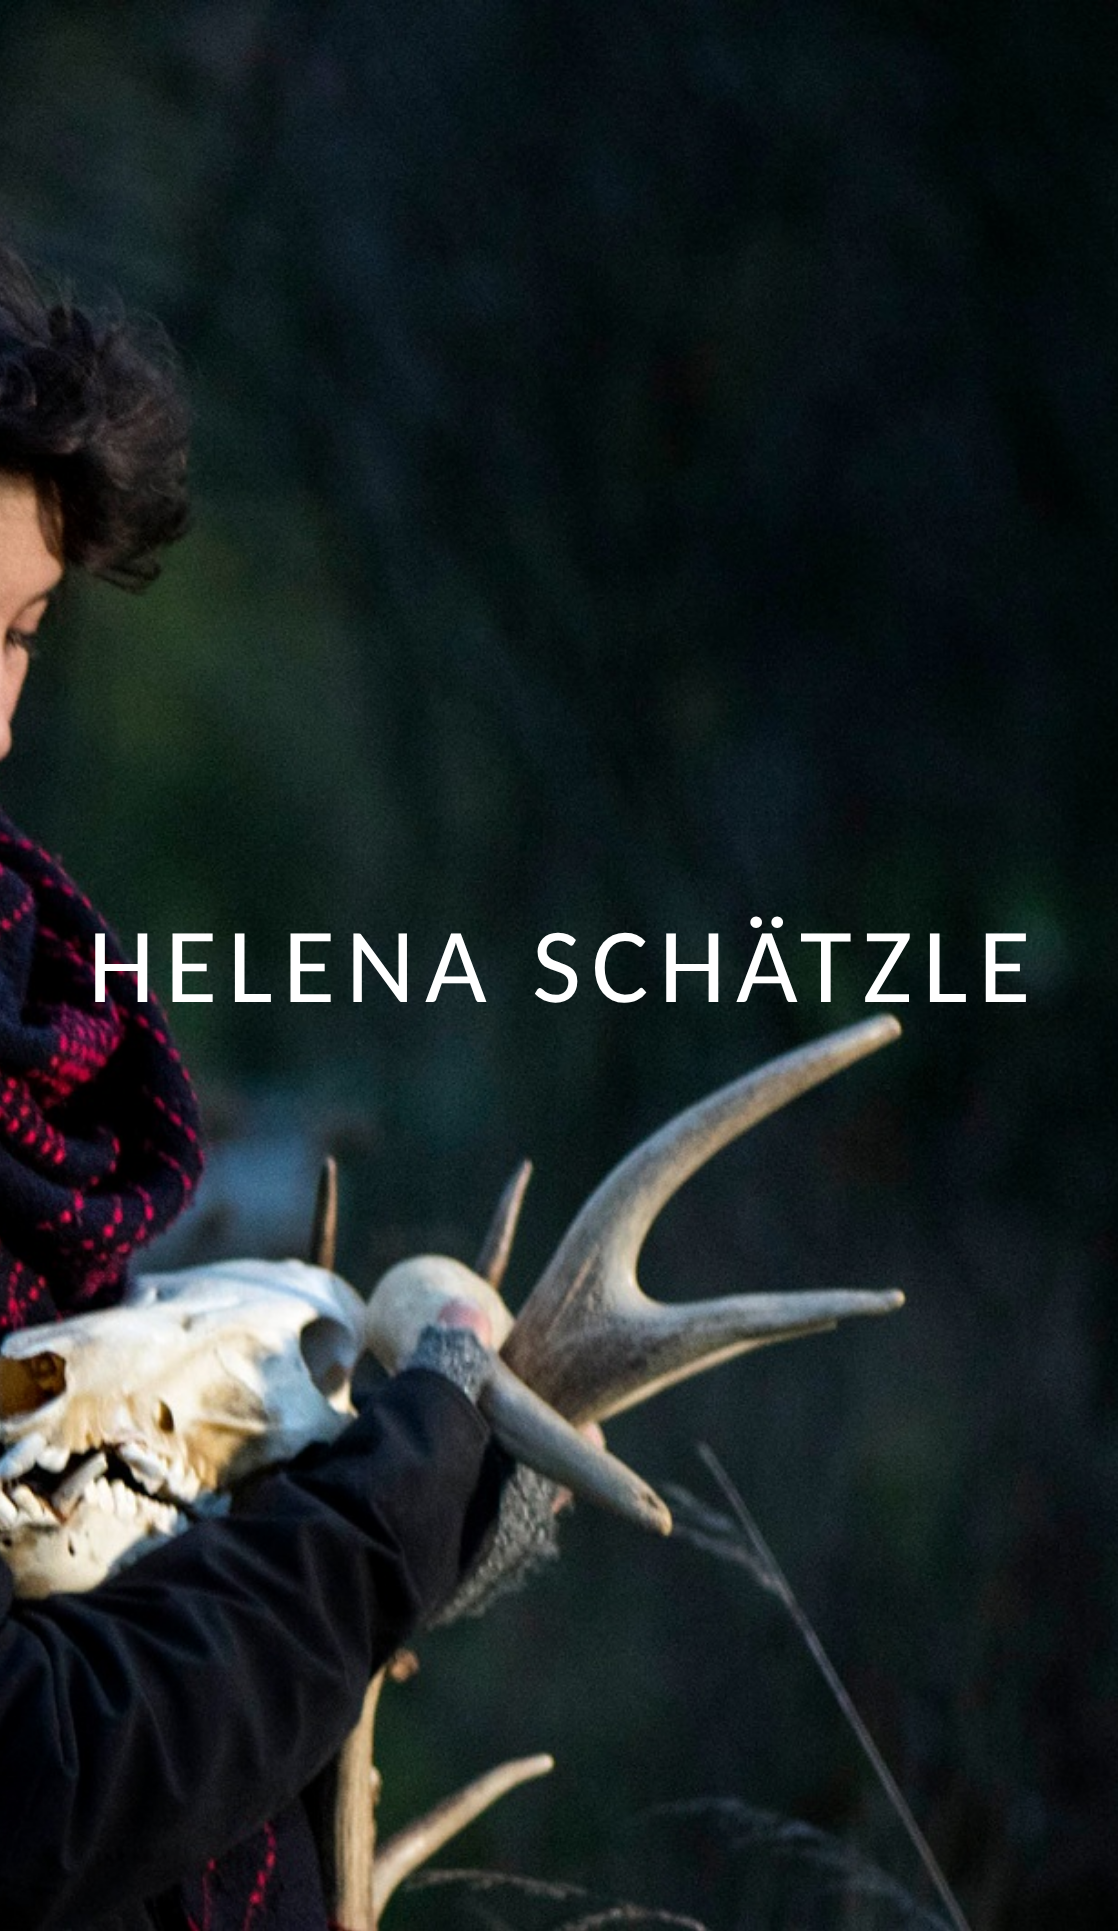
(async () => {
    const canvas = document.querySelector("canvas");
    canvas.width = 1118;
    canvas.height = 1931;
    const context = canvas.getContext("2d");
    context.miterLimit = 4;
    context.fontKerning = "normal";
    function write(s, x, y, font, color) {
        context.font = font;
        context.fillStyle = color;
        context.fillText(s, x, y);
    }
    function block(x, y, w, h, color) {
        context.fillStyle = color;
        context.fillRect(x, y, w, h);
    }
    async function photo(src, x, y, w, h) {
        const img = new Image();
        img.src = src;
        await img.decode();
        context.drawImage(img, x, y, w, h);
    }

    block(0, 0, 1118, 1931, "rgb(255, 255, 255)");
    await photo("media/1.png", 0, 0, 1118, 1931);
    context.letterSpacing = "10.5px";
    write("HELENA SCHÄTZLE", 88, 1002, "106.75px Carlito", "rgb(255, 255, 255)");
})();
